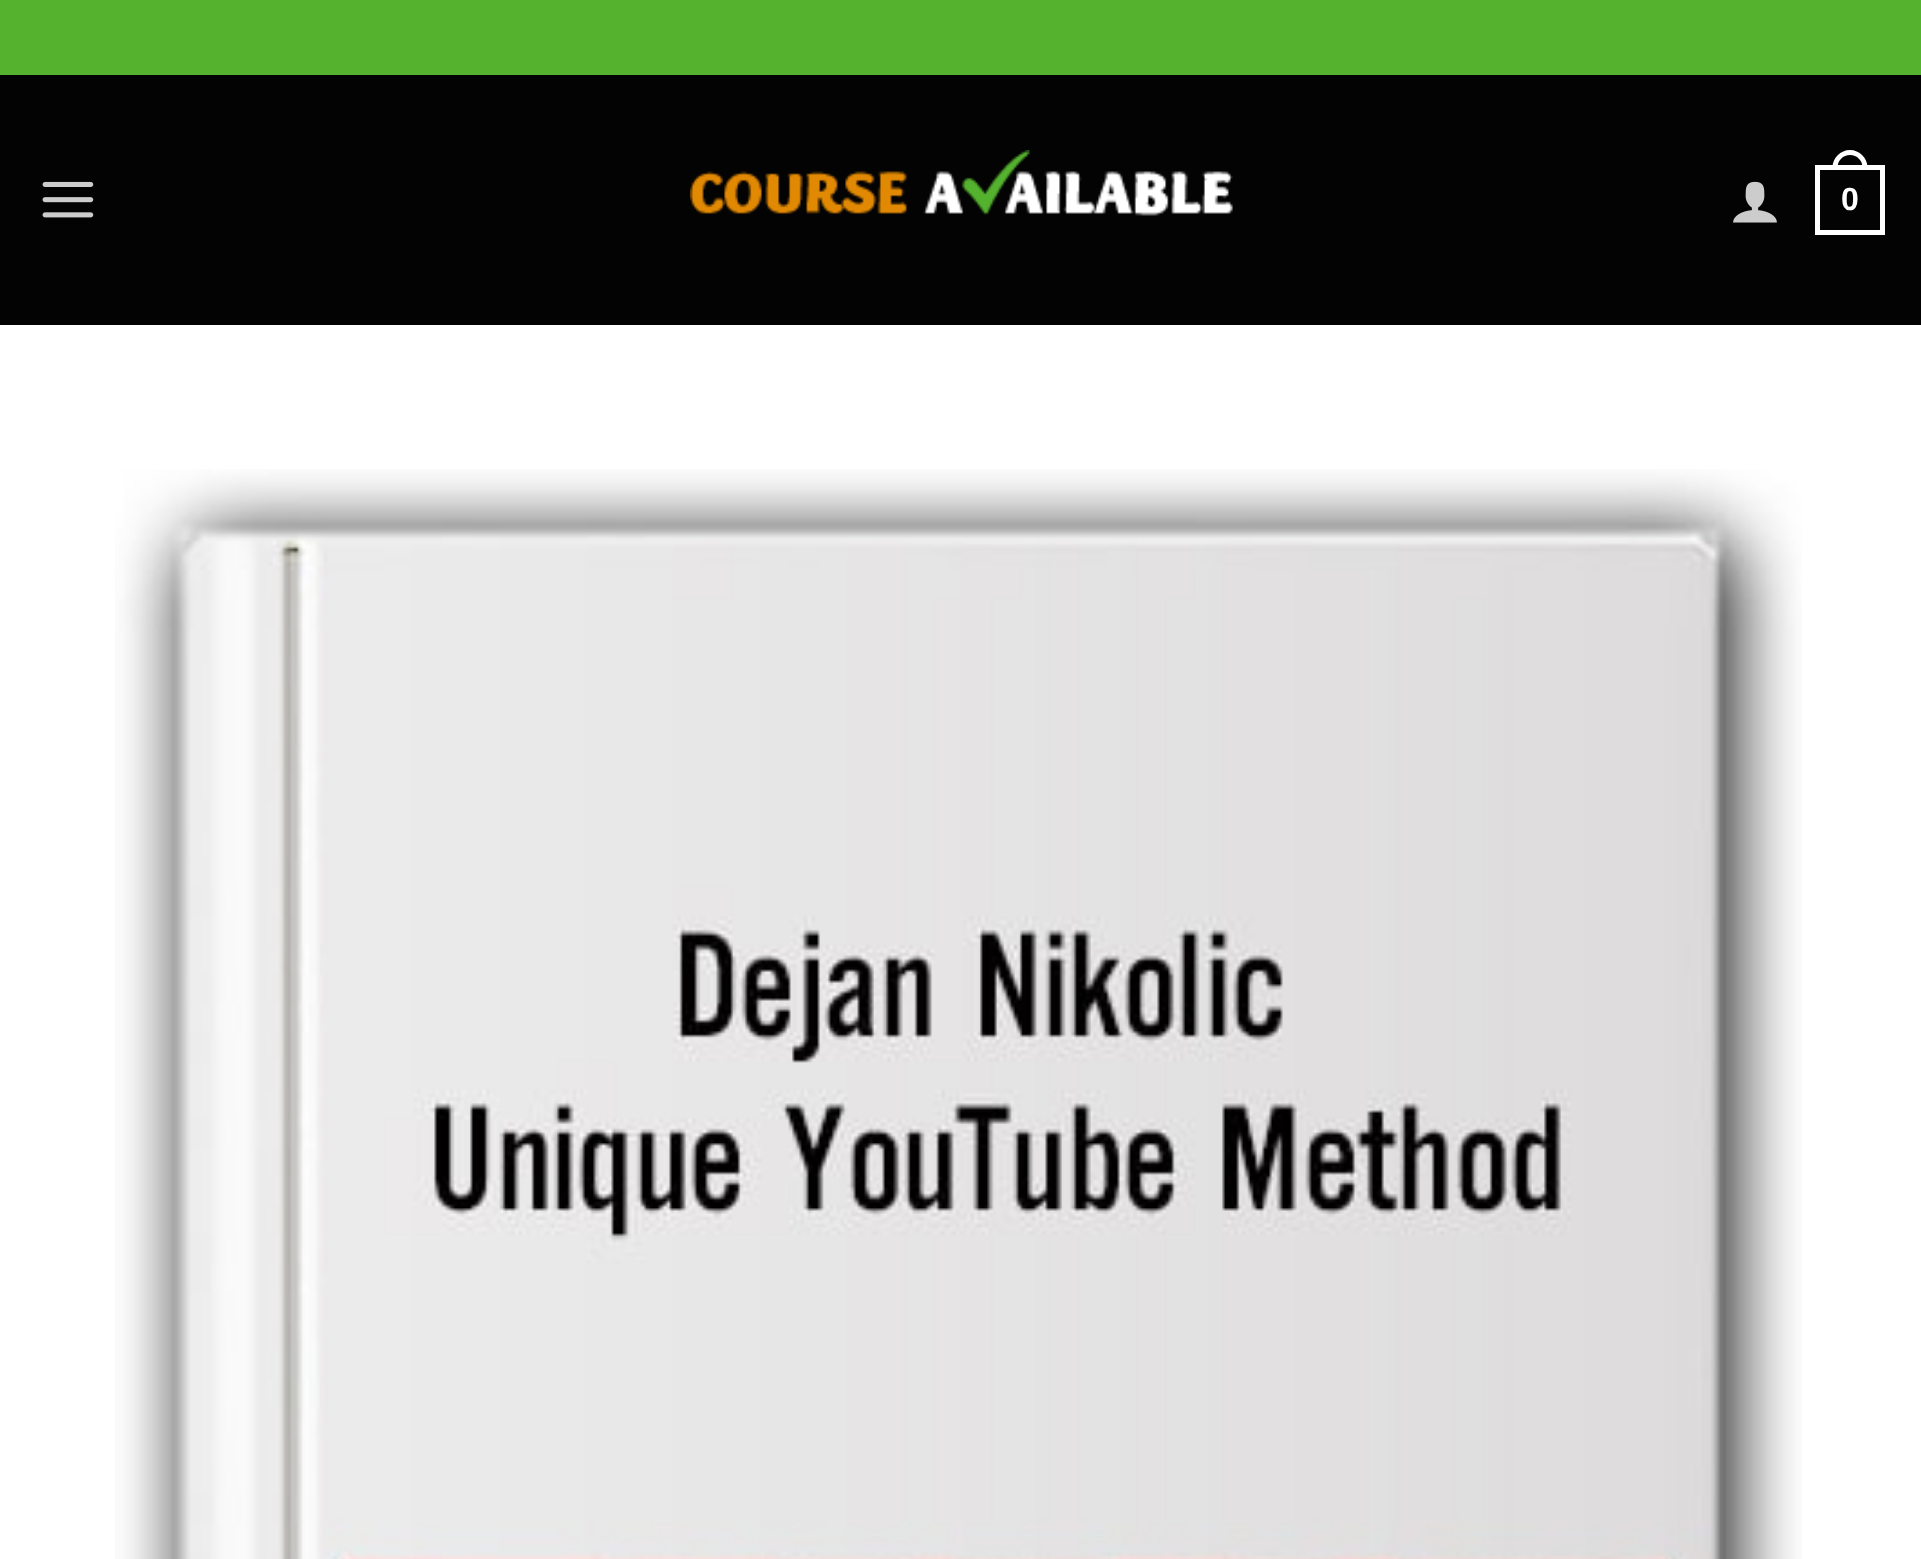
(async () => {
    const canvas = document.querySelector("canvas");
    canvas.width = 1921;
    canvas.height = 1559;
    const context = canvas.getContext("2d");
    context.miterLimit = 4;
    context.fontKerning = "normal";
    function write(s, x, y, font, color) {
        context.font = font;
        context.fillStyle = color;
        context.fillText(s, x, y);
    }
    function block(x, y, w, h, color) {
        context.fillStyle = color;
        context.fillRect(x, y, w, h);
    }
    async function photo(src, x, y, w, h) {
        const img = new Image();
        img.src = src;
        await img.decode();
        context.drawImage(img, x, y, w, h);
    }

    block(0, 0, 1921, 1559, "rgb(255, 255, 255)");
    block(0, 0, 1921, 75, "rgb(85, 178, 47)");
    block(0, 75, 1921, 250, "rgb(3, 3, 3)");
    await photo("media/1.png", 42, 181, 52, 37);
    await photo("media/2.png", 690, 150, 543, 66);
    await photo("media/3.png", 1733, 181, 44, 42);
    context.strokeStyle = "rgb(255, 255, 255)";
    context.lineWidth = 5;
    context.strokeRect(1817.5, 167.5, 65, 65);
    context.fillStyle = "rgb(255, 255, 255)";
    context.beginPath();
    context.moveTo(1850, 150);
    context.bezierCurveTo(1859.5, 150, 1867.5, 158, 1867.5, 167.5);
    context.lineTo(1867.5, 170);
    context.lineTo(1832.5, 170);
    context.lineTo(1832.5, 167.5);
    context.bezierCurveTo(1832.5, 158, 1840.5, 150, 1850, 150);
    context.closePath();
    context.moveTo(1850, 155);
    context.bezierCurveTo(1857, 155, 1862.5, 160.5, 1862.5, 167.5);
    context.lineTo(1862.5, 170);
    context.lineTo(1837.5, 170);
    context.lineTo(1837.5, 167.5);
    context.bezierCurveTo(1837.5, 160.5, 1843, 155, 1850, 155);
    context.closePath();
    context.fill("evenodd");
    write("0", 1841, 210, "bold 32px Liberation Sans", "rgb(255, 255, 255)");
    await photo("media/4.png", 115, 469, 1687, 1090);
})();
